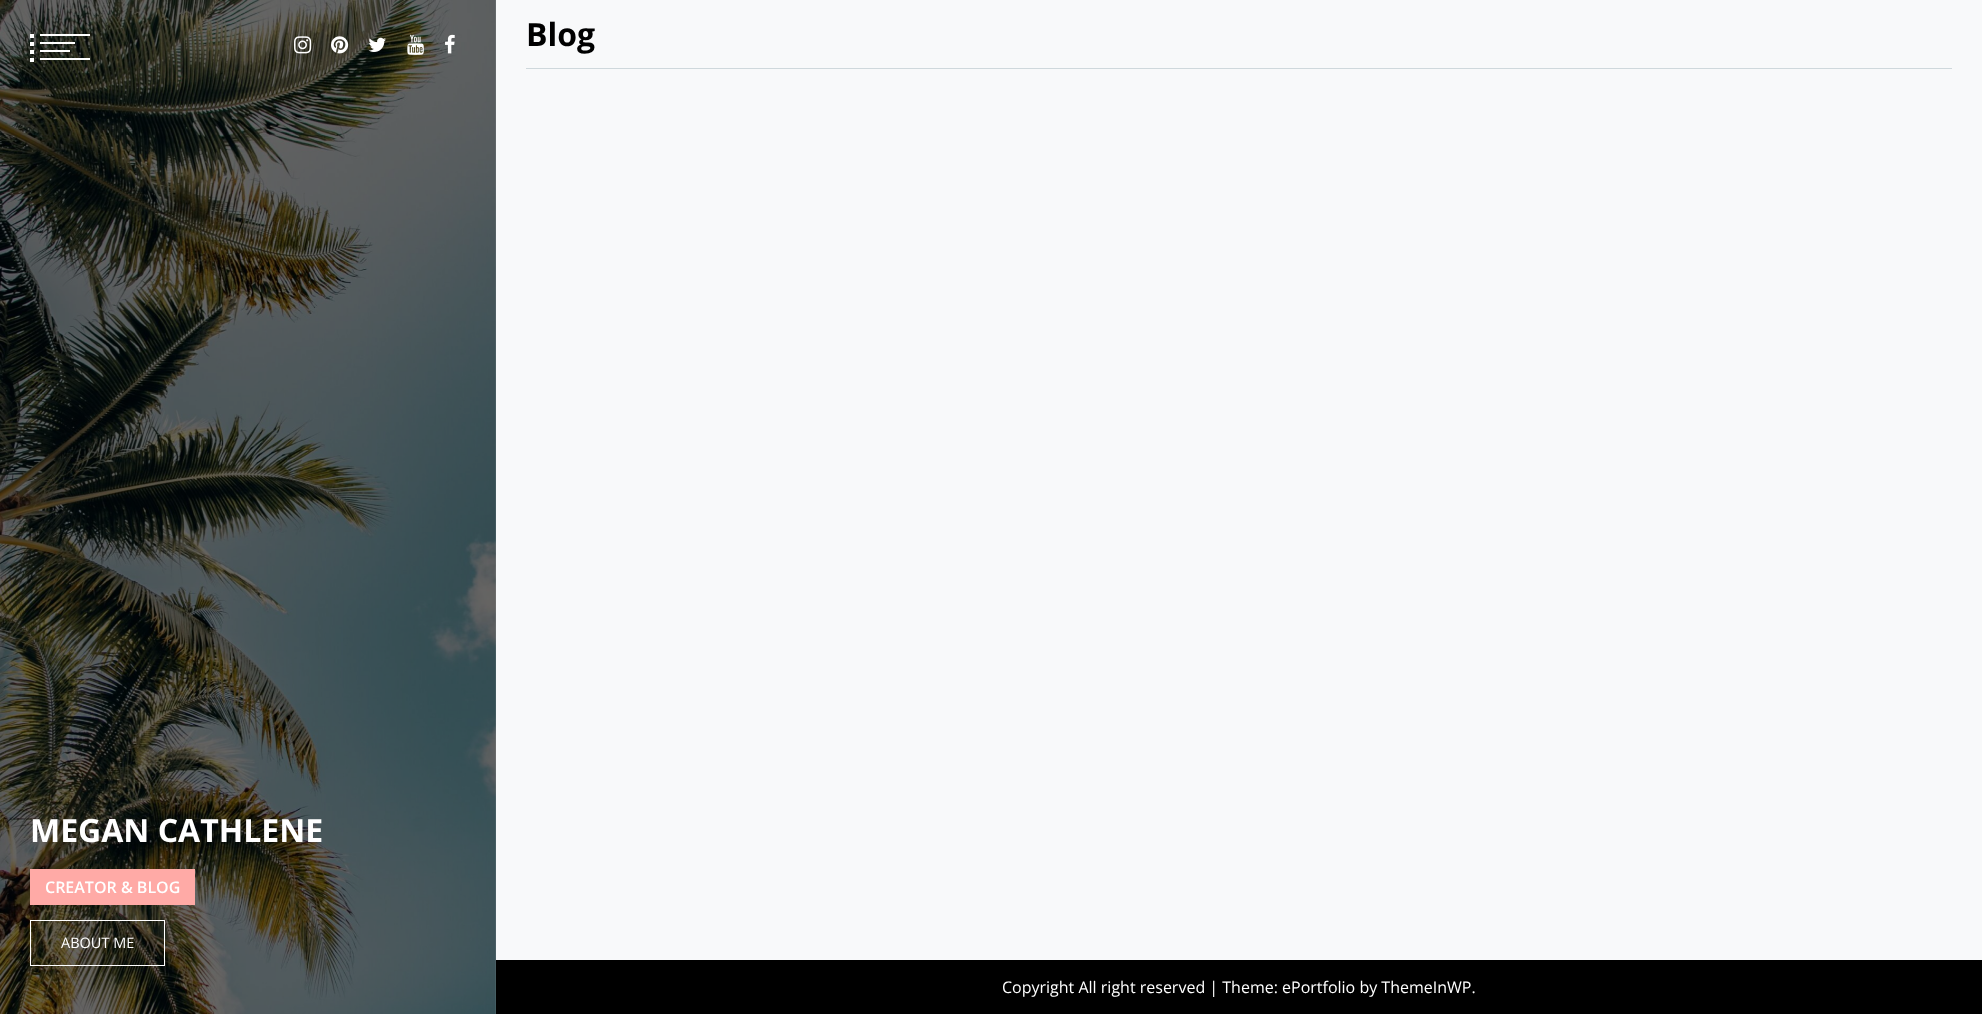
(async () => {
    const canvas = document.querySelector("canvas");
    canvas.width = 1982;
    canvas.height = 1014;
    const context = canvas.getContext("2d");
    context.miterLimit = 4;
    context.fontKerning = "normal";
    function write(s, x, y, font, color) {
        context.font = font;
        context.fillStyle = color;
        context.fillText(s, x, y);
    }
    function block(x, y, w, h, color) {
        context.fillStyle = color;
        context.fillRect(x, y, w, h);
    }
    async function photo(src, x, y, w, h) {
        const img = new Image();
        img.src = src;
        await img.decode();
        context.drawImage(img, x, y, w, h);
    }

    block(0, 0, 1982, 1014, "rgb(255, 255, 255)");
    block(496, 0, 1486, 960, "rgb(248, 249, 250)");
    block(526, 68, 1426, 1, "rgb(207, 216, 220)");
    write("Blog", 526, 46, "bold 32px Open Sans", "rgb(0, 0, 0)");
    await photo("media/1.png", 0, 0, 496, 1014);
    block(30, 34, 4, 4, "rgb(255, 255, 255)");
    block(40, 34, 50, 2, "rgb(255, 255, 255)");
    block(30, 42, 4, 4, "rgb(255, 255, 255)");
    block(40, 42, 35, 2, "rgb(255, 255, 255)");
    block(30, 50, 4, 4, "rgb(255, 255, 255)");
    block(40, 50, 30, 2, "rgb(255, 255, 255)");
    block(30, 58, 4, 4, "rgb(255, 255, 255)");
    block(40, 58, 50, 2, "rgb(255, 255, 255)");
    await photo("media/2.png", 294, 36, 18, 18);
    await photo("media/3.png", 331, 36, 18, 18);
    await photo("media/4.png", 368, 37, 18, 15);
    await photo("media/5.png", 407, 34, 17, 21);
    await photo("media/6.png", 445, 34, 10, 20);
    write("MEGAN CATHLENE", 30, 842, "bold 32px Open Sans", "rgb(255, 255, 255)");
    block(30, 869, 165, 36, "rgb(255, 170, 166)");
    write("CREATOR & BLOG", 45, 893, "600 16px Open Sans", "rgb(255, 255, 255)");
    context.strokeStyle = "rgb(255, 255, 255)";
    context.strokeRect(30.5, 920.5, 134, 45);
    write("ABOUT ME", 61, 948, "14.5px Open Sans", "rgb(255, 255, 255)");
    block(496, 960, 1486, 54, "rgb(0, 0, 0)");
    write("Copyright All right reserved | Theme: ePortfolio by ThemeInWP.", 1002, 993, "16px Open Sans", "rgb(255, 255, 255)");
})();
